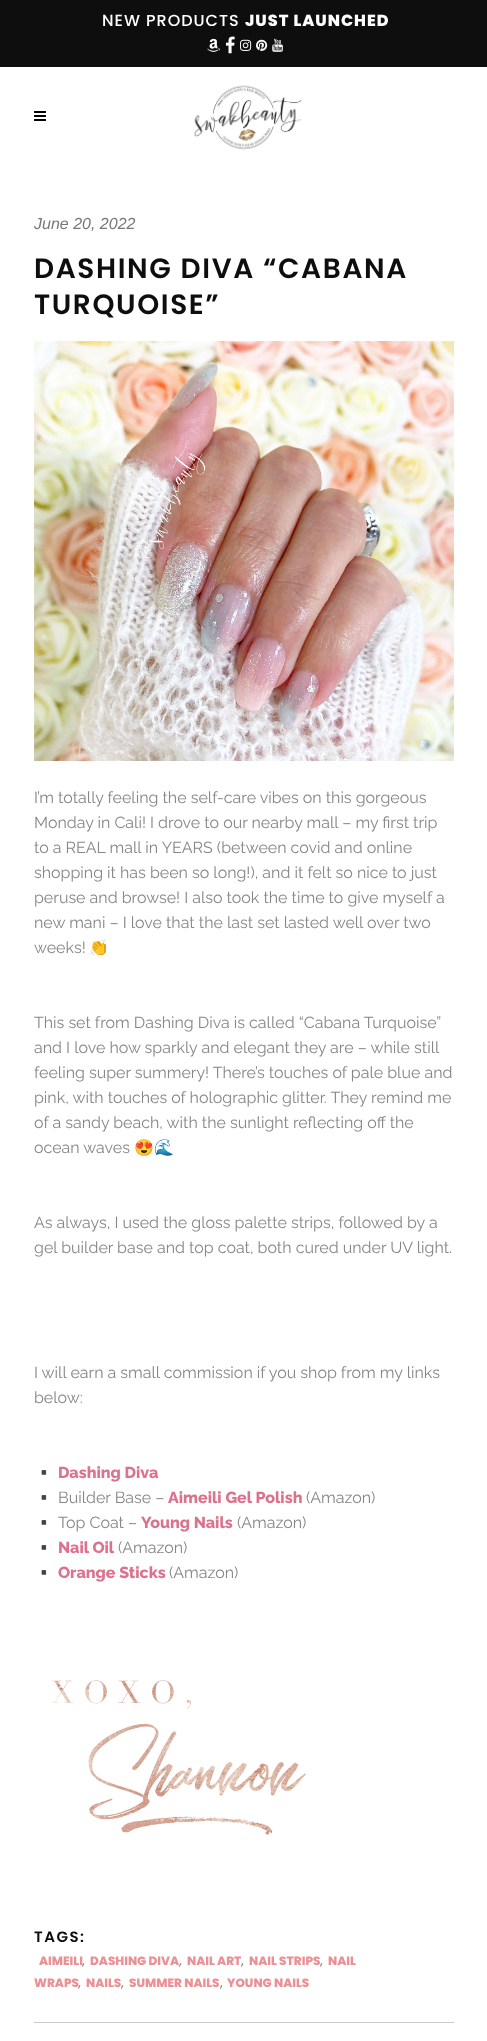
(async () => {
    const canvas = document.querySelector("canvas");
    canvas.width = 487;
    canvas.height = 2041;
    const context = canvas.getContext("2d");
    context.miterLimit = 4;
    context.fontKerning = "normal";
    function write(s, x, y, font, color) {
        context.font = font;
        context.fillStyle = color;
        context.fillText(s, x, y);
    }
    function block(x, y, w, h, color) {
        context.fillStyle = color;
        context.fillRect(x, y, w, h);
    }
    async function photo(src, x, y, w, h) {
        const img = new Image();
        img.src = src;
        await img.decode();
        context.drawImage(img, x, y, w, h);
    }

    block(0, 0, 487, 2041, "rgb(255, 255, 255)");
    block(0, 0, 487, 67, "rgb(14, 14, 14)");
    context.letterSpacing = "1px";
    write("NEW PRODUCTS", 102, 26, "500 16px Poppins", "rgb(255, 255, 255)");
    write("JUST LAUNCHED", 245, 26, "800 16px Poppins", "rgb(255, 255, 255)");
    await photo("media/1.png", 207, 38, 13, 14);
    await photo("media/2.png", 225, 36, 10, 18);
    await photo("media/3.png", 240, 39, 12, 12);
    await photo("media/4.png", 256, 39, 12, 12);
    await photo("media/5.png", 272, 38, 11, 14);
    await photo("media/6.png", 34, 111, 12, 10);
    await photo("media/7.png", 194, 85, 108, 65);
    context.letterSpacing = "0px";
    write("June 20, 2022", 34, 229, "italic 16px Liberation Sans", "rgb(120, 120, 120)");
    context.letterSpacing = "1.6px";
    write("DASHING DIVA “CABANA", 34, 278, "600 28px Poppins", "rgb(14, 14, 14)");
    write("TURQUOISE”", 34, 314, "600 28px Poppins", "rgb(14, 14, 14)");
    await photo("media/8.png", 34, 341, 420, 420);
    context.letterSpacing = "0px";
    write("I’m totally feeling the self-care vibes on this gorgeous", 34, 803, "16px Raleway", "rgb(134, 134, 134)");
    write("Monday in Cali! I drove to our nearby mall – my first trip", 34, 828, "16px Raleway", "rgb(134, 134, 134)");
    write("to a REAL mall in YEARS (between covid and online", 34, 853, "16px Raleway", "rgb(134, 134, 134)");
    write("shopping it has been so long!), and it felt so nice to just", 34, 878, "16px Raleway", "rgb(134, 134, 134)");
    write("peruse and browse! I also took the time to give myself a", 34, 903, "16px Raleway", "rgb(134, 134, 134)");
    write("new mani – I love that the last set lasted well over two", 34, 928, "16px Raleway", "rgb(134, 134, 134)");
    write("weeks!", 34, 953, "16px Raleway", "rgb(134, 134, 134)");
    write("👏", 89, 953, "16px Noto Color Emoji", "rgb(134, 134, 134)");
    write("This set from Dashing Diva is called “Cabana Turquoise”", 34, 1028, "16px Raleway", "rgb(134, 134, 134)");
    write("and I love how sparkly and elegant they are – while still", 34, 1053, "16px Raleway", "rgb(134, 134, 134)");
    write("feeling super summery! There’s touches of pale blue and", 34, 1078, "16px Raleway", "rgb(134, 134, 134)");
    write("pink, with touches of holographic glitter. They remind me", 34, 1103, "16px Raleway", "rgb(134, 134, 134)");
    write("of a sandy beach, with the sunlight reflecting off the", 34, 1128, "16px Raleway", "rgb(134, 134, 134)");
    write("ocean waves", 34, 1153, "16px Raleway", "rgb(134, 134, 134)");
    write("😍🌊", 134, 1153, "16px Noto Color Emoji", "rgb(134, 134, 134)");
    write("As always, I used the gloss palette strips, followed by a", 34, 1228, "16px Raleway", "rgb(134, 134, 134)");
    write("gel builder base and top coat, both cured under UV light.", 34, 1253, "16px Raleway", "rgb(134, 134, 134)");
    write("I will earn a small commission if you shop from my links", 34, 1378, "16px Raleway", "rgb(134, 134, 134)");
    write("below:", 34, 1403, "16px Raleway", "rgb(134, 134, 134)");
    write("▪️", 34, 1478, "16px Noto Color Emoji", "rgb(134, 134, 134)");
    write("Dashing Diva", 58, 1478, "800 16px Raleway", "rgb(219, 114, 142)");
    write("▪️", 34, 1503, "16px Noto Color Emoji", "rgb(134, 134, 134)");
    write("Builder Base –", 58, 1503, "16px Raleway", "rgb(134, 134, 134)");
    write("Aimeili Gel Polish", 168, 1503, "800 16px Raleway", "rgb(219, 114, 142)");
    write("(Amazon)", 306, 1503, "16px Raleway", "rgb(134, 134, 134)");
    write("▪️", 34, 1528, "16px Noto Color Emoji", "rgb(134, 134, 134)");
    write("Top Coat –", 58, 1528, "16px Raleway", "rgb(134, 134, 134)");
    write("Young Nails", 141, 1528, "800 16px Raleway", "rgb(219, 114, 142)");
    write("(Amazon)", 237, 1528, "16px Raleway", "rgb(134, 134, 134)");
    write("▪️", 34, 1553, "16px Noto Color Emoji", "rgb(134, 134, 134)");
    write("Nail Oil", 58, 1553, "800 16px Raleway", "rgb(219, 114, 142)");
    write("(Amazon)", 118, 1553, "16px Raleway", "rgb(134, 134, 134)");
    write("▪️", 34, 1578, "16px Noto Color Emoji", "rgb(134, 134, 134)");
    write("Orange Sticks", 58, 1578, "800 16px Raleway", "rgb(219, 114, 142)");
    write("(Amazon)", 169, 1578, "16px Raleway", "rgb(134, 134, 134)");
    await photo("media/9.png", 51, 1680, 255, 155);
    block(34, 2022, 420, 1, "rgb(201, 201, 201)");
    context.letterSpacing = "1.5px";
    write("TAGS:", 34, 1942, "600 15px Poppins", "rgb(14, 14, 14)");
    context.letterSpacing = "0px";
    write("AIMEILI", 39, 1965, "800 12px Poppins", "rgb(234, 145, 149)");
    write(",", 82, 1965, "500 12px Poppins", "rgb(134, 134, 134)");
    write("DASHING DIVA", 90, 1965, "800 12px Poppins", "rgb(234, 145, 149)");
    write(",", 179, 1965, "500 12px Poppins", "rgb(134, 134, 134)");
    write("NAIL ART", 187, 1965, "800 12px Poppins", "rgb(234, 145, 149)");
    write(",", 241, 1965, "500 12px Poppins", "rgb(134, 134, 134)");
    write("NAIL STRIPS", 249, 1965, "800 12px Poppins", "rgb(234, 145, 149)");
    write(",", 320, 1965, "500 12px Poppins", "rgb(134, 134, 134)");
    write("NAIL", 328, 1965, "800 12px Poppins", "rgb(234, 145, 149)");
    write("WRAPS", 34, 1987, "800 12px Poppins", "rgb(234, 145, 149)");
    write(",", 78, 1987, "500 12px Poppins", "rgb(134, 134, 134)");
    write("NAILS", 86, 1987, "800 12px Poppins", "rgb(234, 145, 149)");
    write(",", 121, 1987, "500 12px Poppins", "rgb(134, 134, 134)");
    write("SUMMER NAILS", 129, 1987, "800 12px Poppins", "rgb(234, 145, 149)");
    write(",", 220, 1987, "500 12px Poppins", "rgb(134, 134, 134)");
    write("YOUNG NAILS", 227, 1987, "800 12px Poppins", "rgb(234, 145, 149)");
})();
